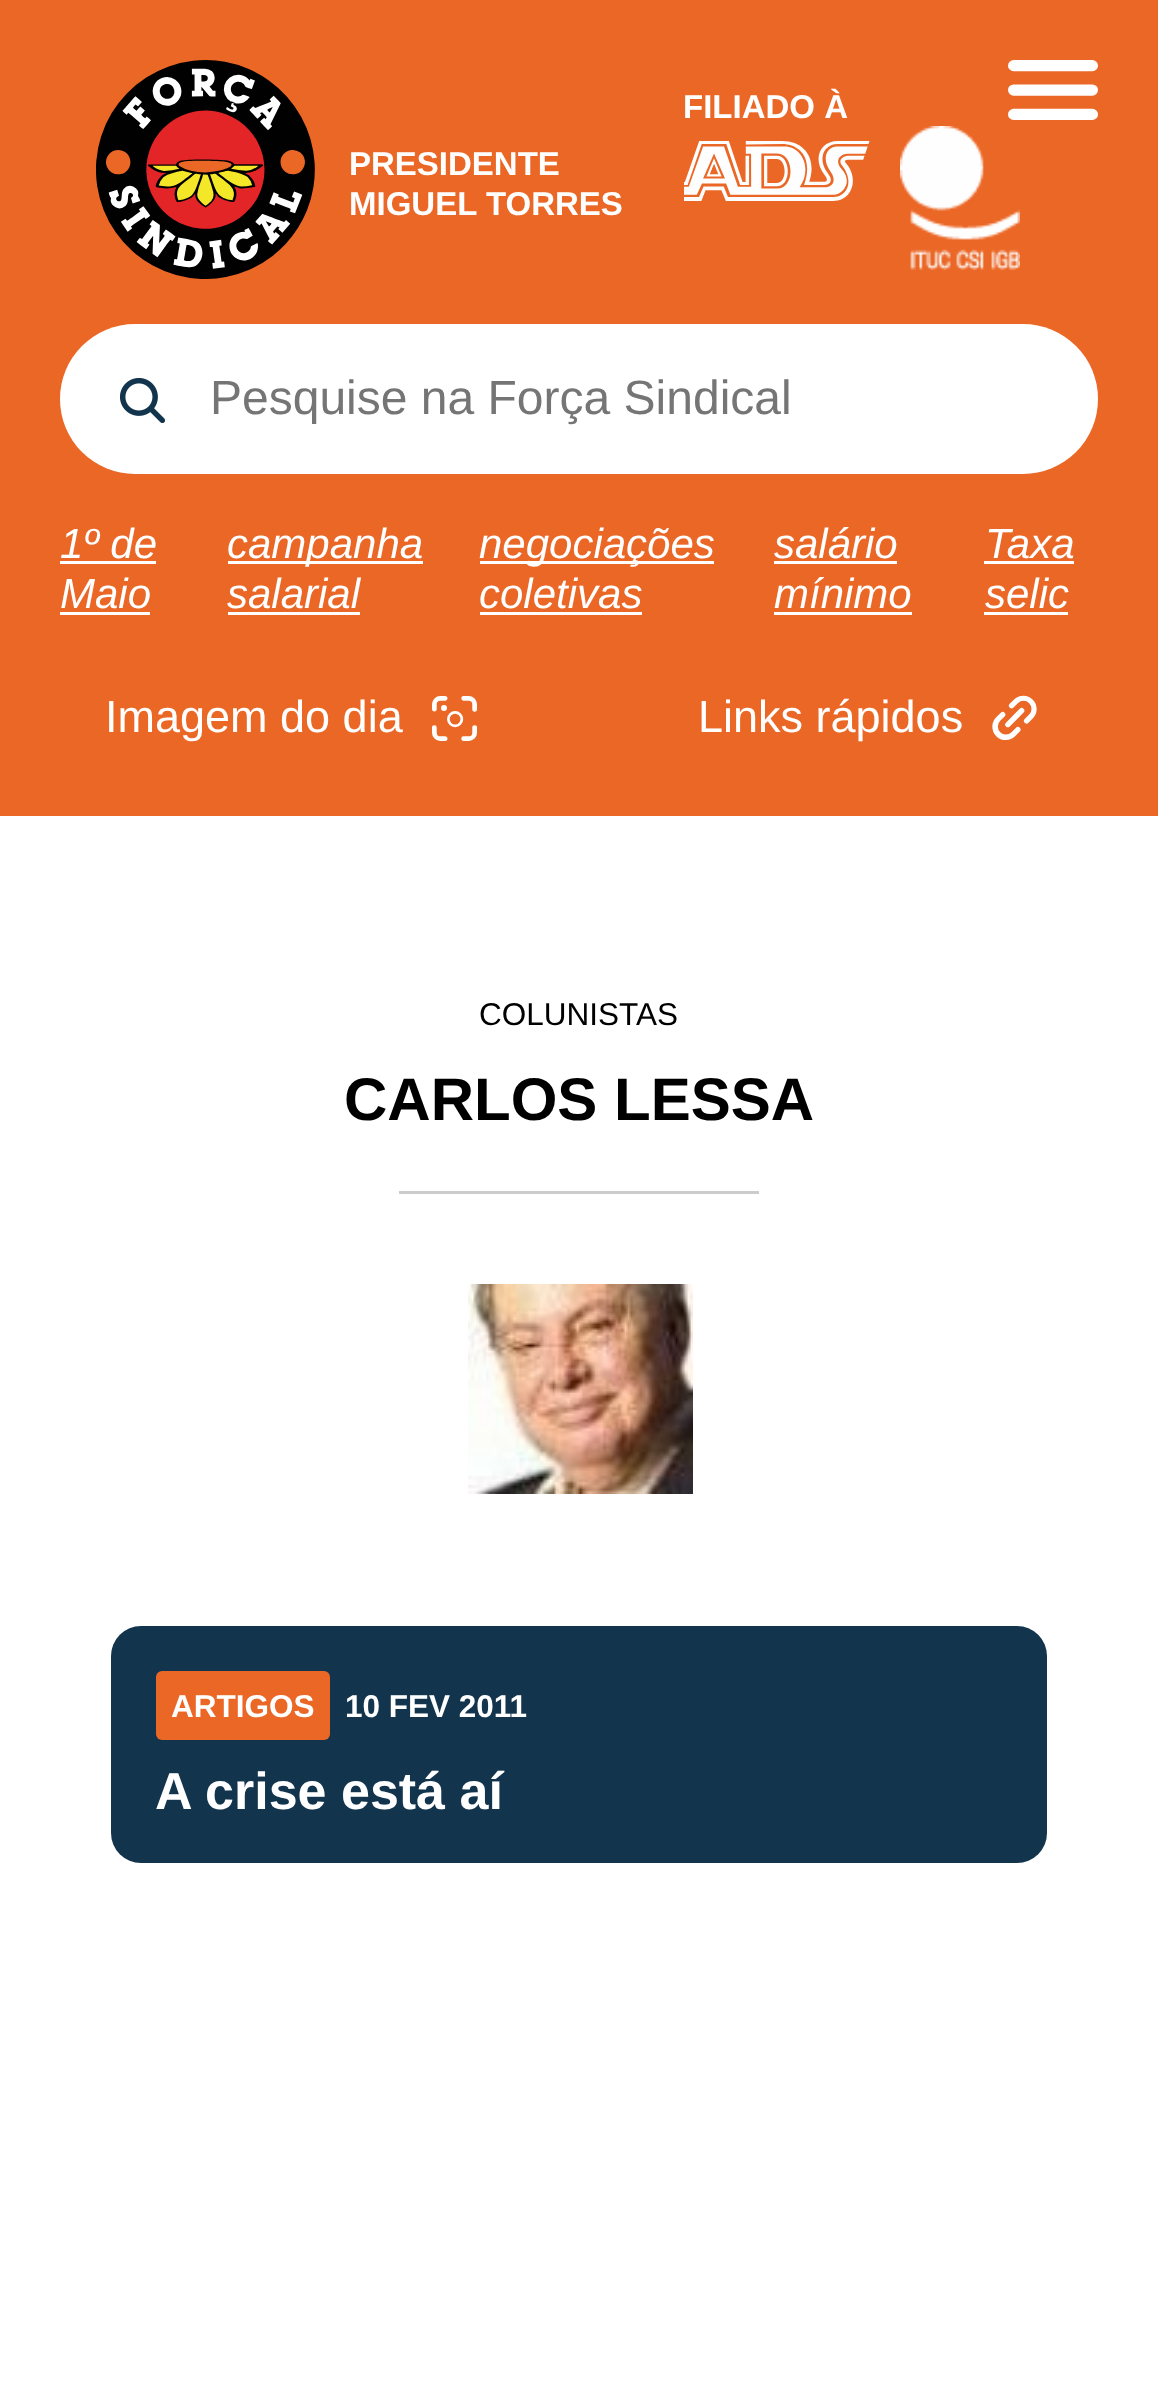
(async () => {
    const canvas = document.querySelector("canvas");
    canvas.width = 1158;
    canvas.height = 2389;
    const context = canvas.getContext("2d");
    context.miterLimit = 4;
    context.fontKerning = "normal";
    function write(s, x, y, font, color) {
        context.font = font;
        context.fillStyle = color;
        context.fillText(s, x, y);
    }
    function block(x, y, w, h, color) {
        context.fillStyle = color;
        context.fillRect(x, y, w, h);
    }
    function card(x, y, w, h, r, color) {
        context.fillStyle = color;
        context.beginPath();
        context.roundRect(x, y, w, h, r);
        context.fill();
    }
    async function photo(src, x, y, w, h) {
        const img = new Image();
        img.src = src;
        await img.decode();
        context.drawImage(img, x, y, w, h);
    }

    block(0, 0, 1158, 2389, "rgb(255, 255, 255)");
    block(0, 0, 1158, 816, "rgb(235, 103, 38)");
    write("FILIADO À", 683, 118, "bold 33px Liberation Sans", "rgb(255, 255, 255)");
    await photo("media/1.png", 684, 141, 186, 60);
    await photo("media/2.png", 900, 126, 120, 144);
    await photo("media/3.png", 96, 60, 219, 219);
    write("PRESIDENTE", 349, 175, "bold 33px Liberation Sans", "rgb(255, 255, 255)");
    write("MIGUEL TORRES", 349, 215, "bold 33px Liberation Sans", "rgb(255, 255, 255)");
    await photo("media/4.png", 1008, 60, 90, 60);
    card(60, 324, 1038, 150, 75, "rgb(255, 255, 255)");
    await photo("media/5.png", 120, 378, 45, 45);
    write("Pesquise na Força Sindical", 210, 414, "48px Liberation Sans", "rgb(117, 117, 117)");
    write("1º de", 60, 558, "italic 42px Liberation Sans", "rgb(255, 255, 255)");
    block(60, 561, 96, 3, "rgb(255, 255, 255)");
    write("Maio", 60, 608, "italic 42px Liberation Sans", "rgb(255, 255, 255)");
    block(60, 612, 90, 3, "rgb(255, 255, 255)");
    block(228, 561, 195, 3, "rgb(255, 255, 255)");
    write("campanha", 227, 558, "italic 42px Liberation Sans", "rgb(255, 255, 255)");
    write("salarial", 227, 608, "italic 42px Liberation Sans", "rgb(255, 255, 255)");
    block(228, 612, 132, 3, "rgb(255, 255, 255)");
    block(480, 561, 234, 3, "rgb(255, 255, 255)");
    write("negociações", 479, 558, "italic 42px Liberation Sans", "rgb(255, 255, 255)");
    write("coletivas", 479, 608, "italic 42px Liberation Sans", "rgb(255, 255, 255)");
    block(480, 612, 162, 3, "rgb(255, 255, 255)");
    write("salário", 774, 558, "italic 42px Liberation Sans", "rgb(255, 255, 255)");
    block(774, 561, 123, 3, "rgb(255, 255, 255)");
    write("mínimo", 774, 608, "italic 42px Liberation Sans", "rgb(255, 255, 255)");
    block(774, 612, 138, 3, "rgb(255, 255, 255)");
    write("Taxa", 985, 558, "italic 42px Liberation Sans", "rgb(255, 255, 255)");
    block(984, 561, 90, 3, "rgb(255, 255, 255)");
    write("selic", 985, 608, "italic 42px Liberation Sans", "rgb(255, 255, 255)");
    block(984, 612, 84, 3, "rgb(255, 255, 255)");
    write("Imagem do dia", 105, 732, "45px Liberation Sans", "rgb(255, 255, 255)");
    await photo("media/6.png", 432, 696, 45, 45);
    write("Links rápidos", 698, 732, "45px Liberation Sans", "rgb(255, 255, 255)");
    await photo("media/7.png", 992, 695, 45, 45);
    write("COLUNISTAS", 479, 1025, "31.5px Liberation Sans", "rgb(0, 0, 0)");
    write("CARLOS LESSA", 344, 1120, "bold 60px Liberation Sans", "rgb(0, 0, 0)");
    block(399, 1191, 360, 3, "rgb(204, 204, 204)");
    await photo("media/8.png", 468, 1284, 225, 210);
    card(111, 1626, 936, 237, 30, "rgb(18, 52, 77)");
    card(156, 1671, 174, 69, 6, "rgb(235, 103, 38)");
    write("ARTIGOS", 171, 1717, "bold 31.5px Liberation Sans", "rgb(255, 255, 255)");
    write("10 FEV 2011", 345, 1717, "bold 31.5px Liberation Sans", "rgb(255, 255, 255)");
    write("A crise está aí", 155, 1809, "bold 52px Liberation Sans", "rgb(255, 255, 255)");
})();
